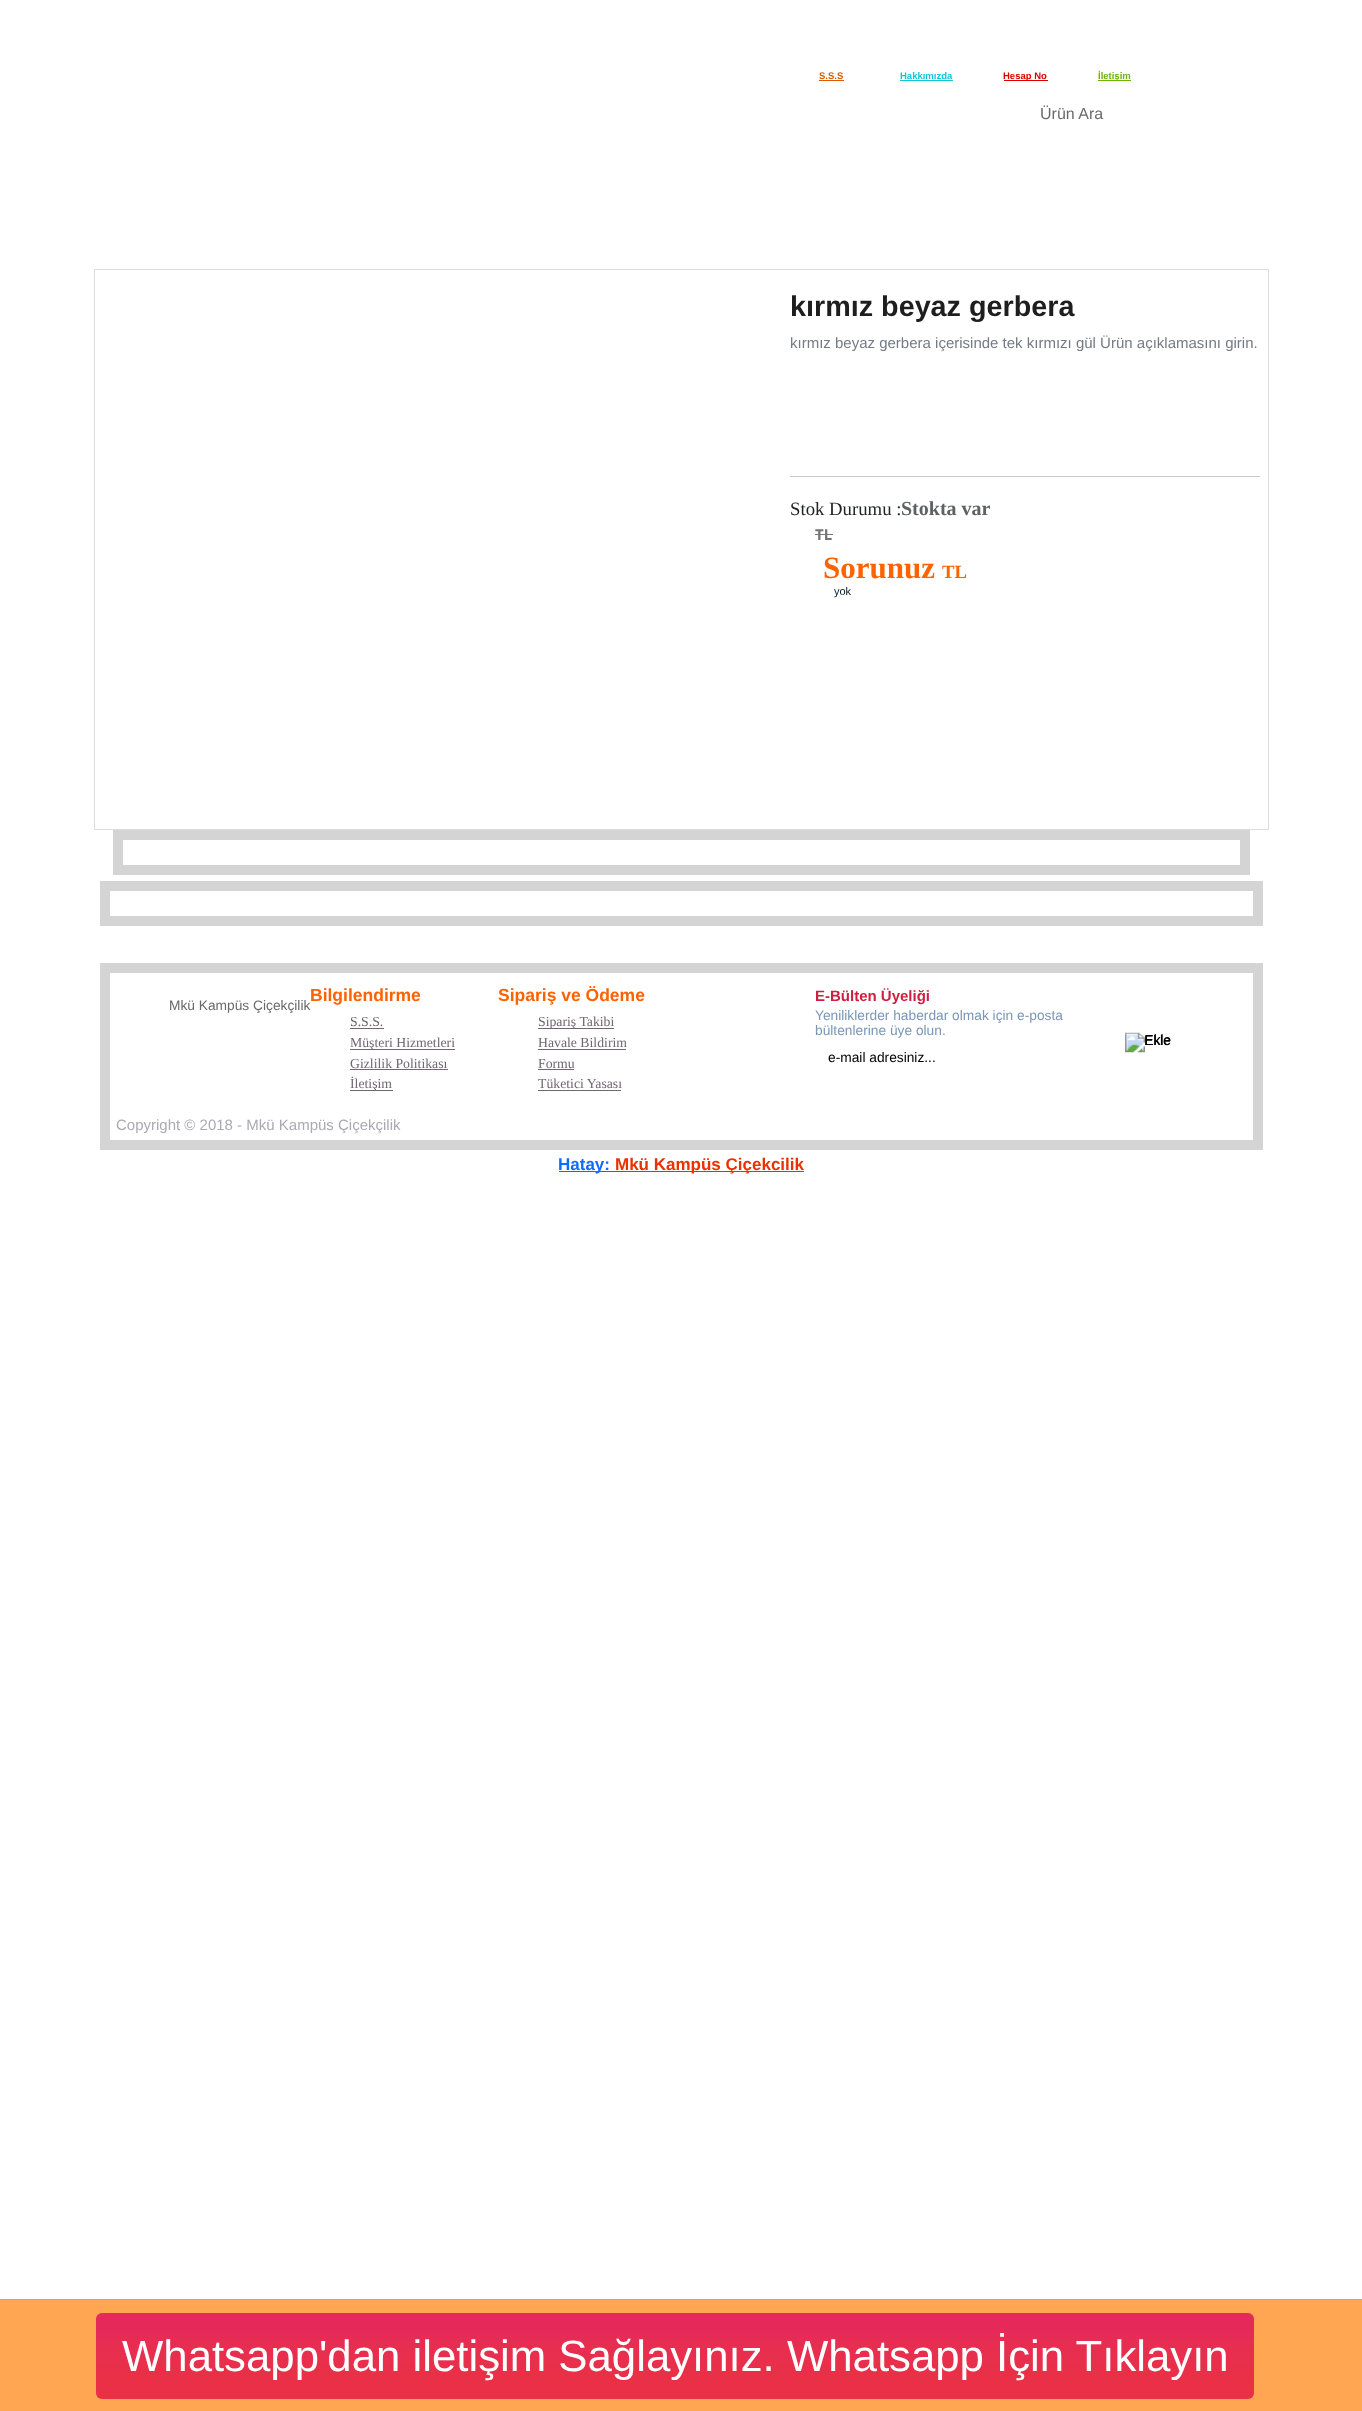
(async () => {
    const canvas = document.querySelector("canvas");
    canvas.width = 1362;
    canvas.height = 2411;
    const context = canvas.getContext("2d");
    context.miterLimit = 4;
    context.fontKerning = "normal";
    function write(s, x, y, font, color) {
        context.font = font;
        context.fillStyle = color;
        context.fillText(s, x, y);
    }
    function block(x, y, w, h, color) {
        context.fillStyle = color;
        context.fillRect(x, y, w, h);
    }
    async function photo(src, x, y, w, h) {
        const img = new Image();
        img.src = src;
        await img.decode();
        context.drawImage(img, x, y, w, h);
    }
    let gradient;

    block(0, 0, 1362, 2411, "rgb(255, 255, 255)");
    write("S.S.S", 819, 79, "bold 9.5px Liberation Sans", "rgb(222, 92, 0)");
    block(819, 80, 25, 1, "rgb(222, 92, 0)");
    write("Hakkımızda", 900, 79, "bold 9.5px Liberation Sans", "rgb(15, 200, 215)");
    block(900, 80, 53, 1, "rgb(15, 200, 215)");
    block(1004, 80, 44, 1, "rgb(221, 0, 0)");
    write("Hesap No", 1003, 79, "bold 9.5px Liberation Sans", "rgb(221, 0, 0)");
    block(1098, 80, 33, 1, "rgb(110, 180, 0)");
    write("İletişim", 1098, 79, "bold 9.5px Liberation Sans", "rgb(110, 180, 0)");
    write("Ürün Ara", 1040, 119, "16px Liberation Sans", "rgb(106, 106, 106)");
    context.strokeStyle = "rgb(221, 221, 221)";
    context.strokeRect(94.5, 269.5, 1174, 560);
    write("kırmız beyaz gerbera", 790, 316, "bold 28.75px Liberation Sans", "rgb(30, 30, 30)");
    write("kırmız beyaz gerbera içerisinde tek kırmızı gül Ürün açıklamasını girin.", 790, 348, "15px Liberation Sans", "rgb(115, 123, 133)");
    block(790, 476, 470, 1, "rgb(200, 201, 202)");
    write("Stok Durumu :", 790, 515, "18.75px Liberation Serif", "rgb(33, 37, 41)");
    write("Stokta var", 901, 515, "bold 20px Liberation Serif", "rgb(94, 98, 99)");
    write("TL", 815, 540, "bold 15px Noto Sans", "rgb(117, 117, 117)");
    block(815, 534, 18, 1, "rgb(117, 117, 117)");
    write("Sorunuz", 823, 578, "bold 31px Liberation Serif", "rgb(255, 98, 0)");
    write("TL", 942, 578, "bold 18.75px Liberation Serif", "rgb(255, 98, 0)");
    write("yok", 834, 595, "11px Liberation Sans", "rgb(0, 26, 39)");
    context.strokeStyle = "rgb(212, 212, 212)";
    context.lineWidth = 10;
    context.strokeRect(118, 835, 1127, 35);
    context.strokeRect(105, 886, 1153, 35);
    context.strokeRect(105, 968, 1153, 177);
    write("Mkü Kampüs Çiçekçilik", 169, 1010, "13.75px Liberation Sans", "rgb(106, 106, 106)");
    write("Bilgilendirme", 310, 1001, "bold 17.5px Liberation Sans", "rgb(255, 98, 0)");
    write("S.S.S.", 350, 1026, "13.75px Liberation Serif", "rgb(113, 102, 113)");
    block(350, 1028, 34, 1, "rgb(113, 102, 113)");
    block(350, 1049, 105, 1, "rgb(113, 102, 113)");
    write("Müşteri Hizmetleri", 350, 1047, "13.75px Liberation Serif", "rgb(113, 102, 113)");
    write("Gizlilik Politikası", 350, 1068, "13.75px Liberation Serif", "rgb(113, 102, 113)");
    block(350, 1069, 98, 1, "rgb(113, 102, 113)");
    block(350, 1090, 43, 1, "rgb(113, 102, 113)");
    write("İletişim", 350, 1088, "13.75px Liberation Serif", "rgb(113, 102, 113)");
    write("Sipariş ve Ödeme", 498, 1001, "bold 17.5px Liberation Sans", "rgb(255, 98, 0)");
    block(538, 1028, 76, 1, "rgb(113, 102, 113)");
    write("Sipariş Takibi", 538, 1026, "13.75px Liberation Serif", "rgb(113, 102, 113)");
    write("Havale Bildirim", 538, 1047, "13.75px Liberation Serif", "rgb(113, 102, 113)");
    block(538, 1049, 88, 1, "rgb(113, 102, 113)");
    write("Formu", 538, 1068, "13.75px Liberation Serif", "rgb(113, 102, 113)");
    block(538, 1069, 36, 1, "rgb(113, 102, 113)");
    write("Tüketici Yasası", 538, 1088, "13.75px Liberation Serif", "rgb(113, 102, 113)");
    block(538, 1090, 83, 1, "rgb(113, 102, 113)");
    write("E-Bülten Üyeliği", 815, 1001, "bold 15px Liberation Sans", "rgb(206, 31, 64)");
    write("Yeniliklerder haberdar olmak için e-posta", 815, 1020, "13.75px Liberation Sans", "rgb(122, 151, 182)");
    write("bültenlerine üye olun.", 815, 1035, "13.75px Liberation Sans", "rgb(122, 151, 182)");
    await photo("media/1.png", 1125, 1032, 46, 21);
    write("Ekle", 1144, 1045, "13.75px Liberation Sans", "rgb(0, 0, 0)");
    write("e-mail adresiniz...", 828, 1062, "13.75px Liberation Sans", "rgb(0, 0, 0)");
    write("Copyright © 2018 - Mkü Kampüs Çiçekçilik", 116, 1130, "15px Liberation Sans", "rgb(170, 170, 180)");
    block(559, 1171, 245, 1, "rgb(13, 110, 253)");
    write("Hatay:", 558, 1170, "bold 17px Liberation Sans", "rgb(13, 110, 253)");
    write("Mkü Kampüs Çiçekcilik", 615, 1170, "bold 17px Liberation Sans", "rgb(234, 49, 0)");
    block(0, 2300, 1362, 111, "rgb(255, 166, 83)");
    block(0, 2299, 1362, 1, "rgb(170, 170, 171)");
    gradient = context.createLinearGradient(96, 2399, 96, 2313);
    gradient.addColorStop(0.22, "rgb(233, 48, 70)");
    gradient.addColorStop(0.61, "rgb(231, 46, 80)");
    gradient.addColorStop(0.81, "rgb(229, 42, 89)");
    context.fillStyle = gradient;
    context.beginPath();
    context.roundRect(96, 2313, 1158, 86, 6);
    context.fill();
    write("Whatsapp'dan iletişim Sağlayınız. Whatsapp İçin Tıklayın", 122, 2371, "43.75px Liberation Sans", "rgb(255, 255, 255)");
})();
